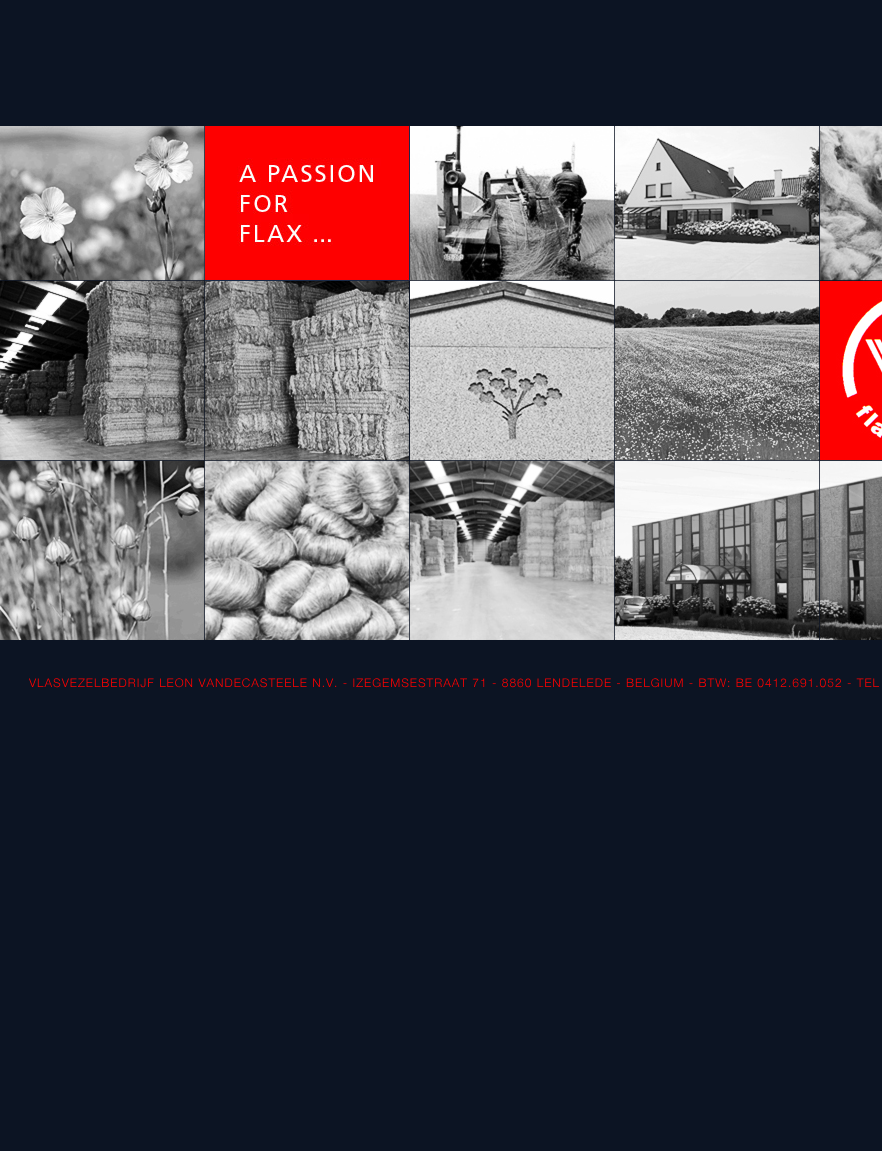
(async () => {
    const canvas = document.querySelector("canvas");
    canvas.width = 882;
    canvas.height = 1151;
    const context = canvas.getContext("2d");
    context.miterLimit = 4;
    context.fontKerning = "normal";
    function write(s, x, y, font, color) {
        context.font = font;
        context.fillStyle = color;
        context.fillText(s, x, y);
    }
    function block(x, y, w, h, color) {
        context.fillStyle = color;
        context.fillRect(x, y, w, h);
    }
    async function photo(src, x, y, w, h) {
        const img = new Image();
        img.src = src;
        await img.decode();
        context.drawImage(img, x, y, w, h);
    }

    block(0, 0, 882, 1151, "rgb(12, 20, 35)");
    await photo("media/1.png", 0, 126, 205, 155);
    await photo("media/2.png", 205, 126, 205, 155);
    await photo("media/3.png", 410, 126, 205, 155);
    await photo("media/4.png", 615, 126, 205, 155);
    await photo("media/5.png", 820, 126, 62, 155);
    await photo("media/6.png", 0, 281, 409, 180);
    await photo("media/7.png", 410, 281, 205, 180);
    await photo("media/8.png", 615, 281, 205, 180);
    await photo("media/9.png", 820, 281, 62, 180);
    await photo("media/10.png", 0, 461, 205, 179);
    await photo("media/11.png", 205, 461, 205, 179);
    await photo("media/12.png", 410, 461, 205, 179);
    await photo("media/13.png", 615, 461, 267, 179);
    context.letterSpacing = "1px";
    write("VLASVEZELBEDRIJF LEON VANDECASTEELE N.V. - IZEGEMSESTRAAT 71 - 8860 LENDELEDE - BELGIUM - BTW: BE 0412.691.052 - TEL", 29, 687, "300 12px Helvetica Neue", "rgb(255, 0, 0)");
})();
